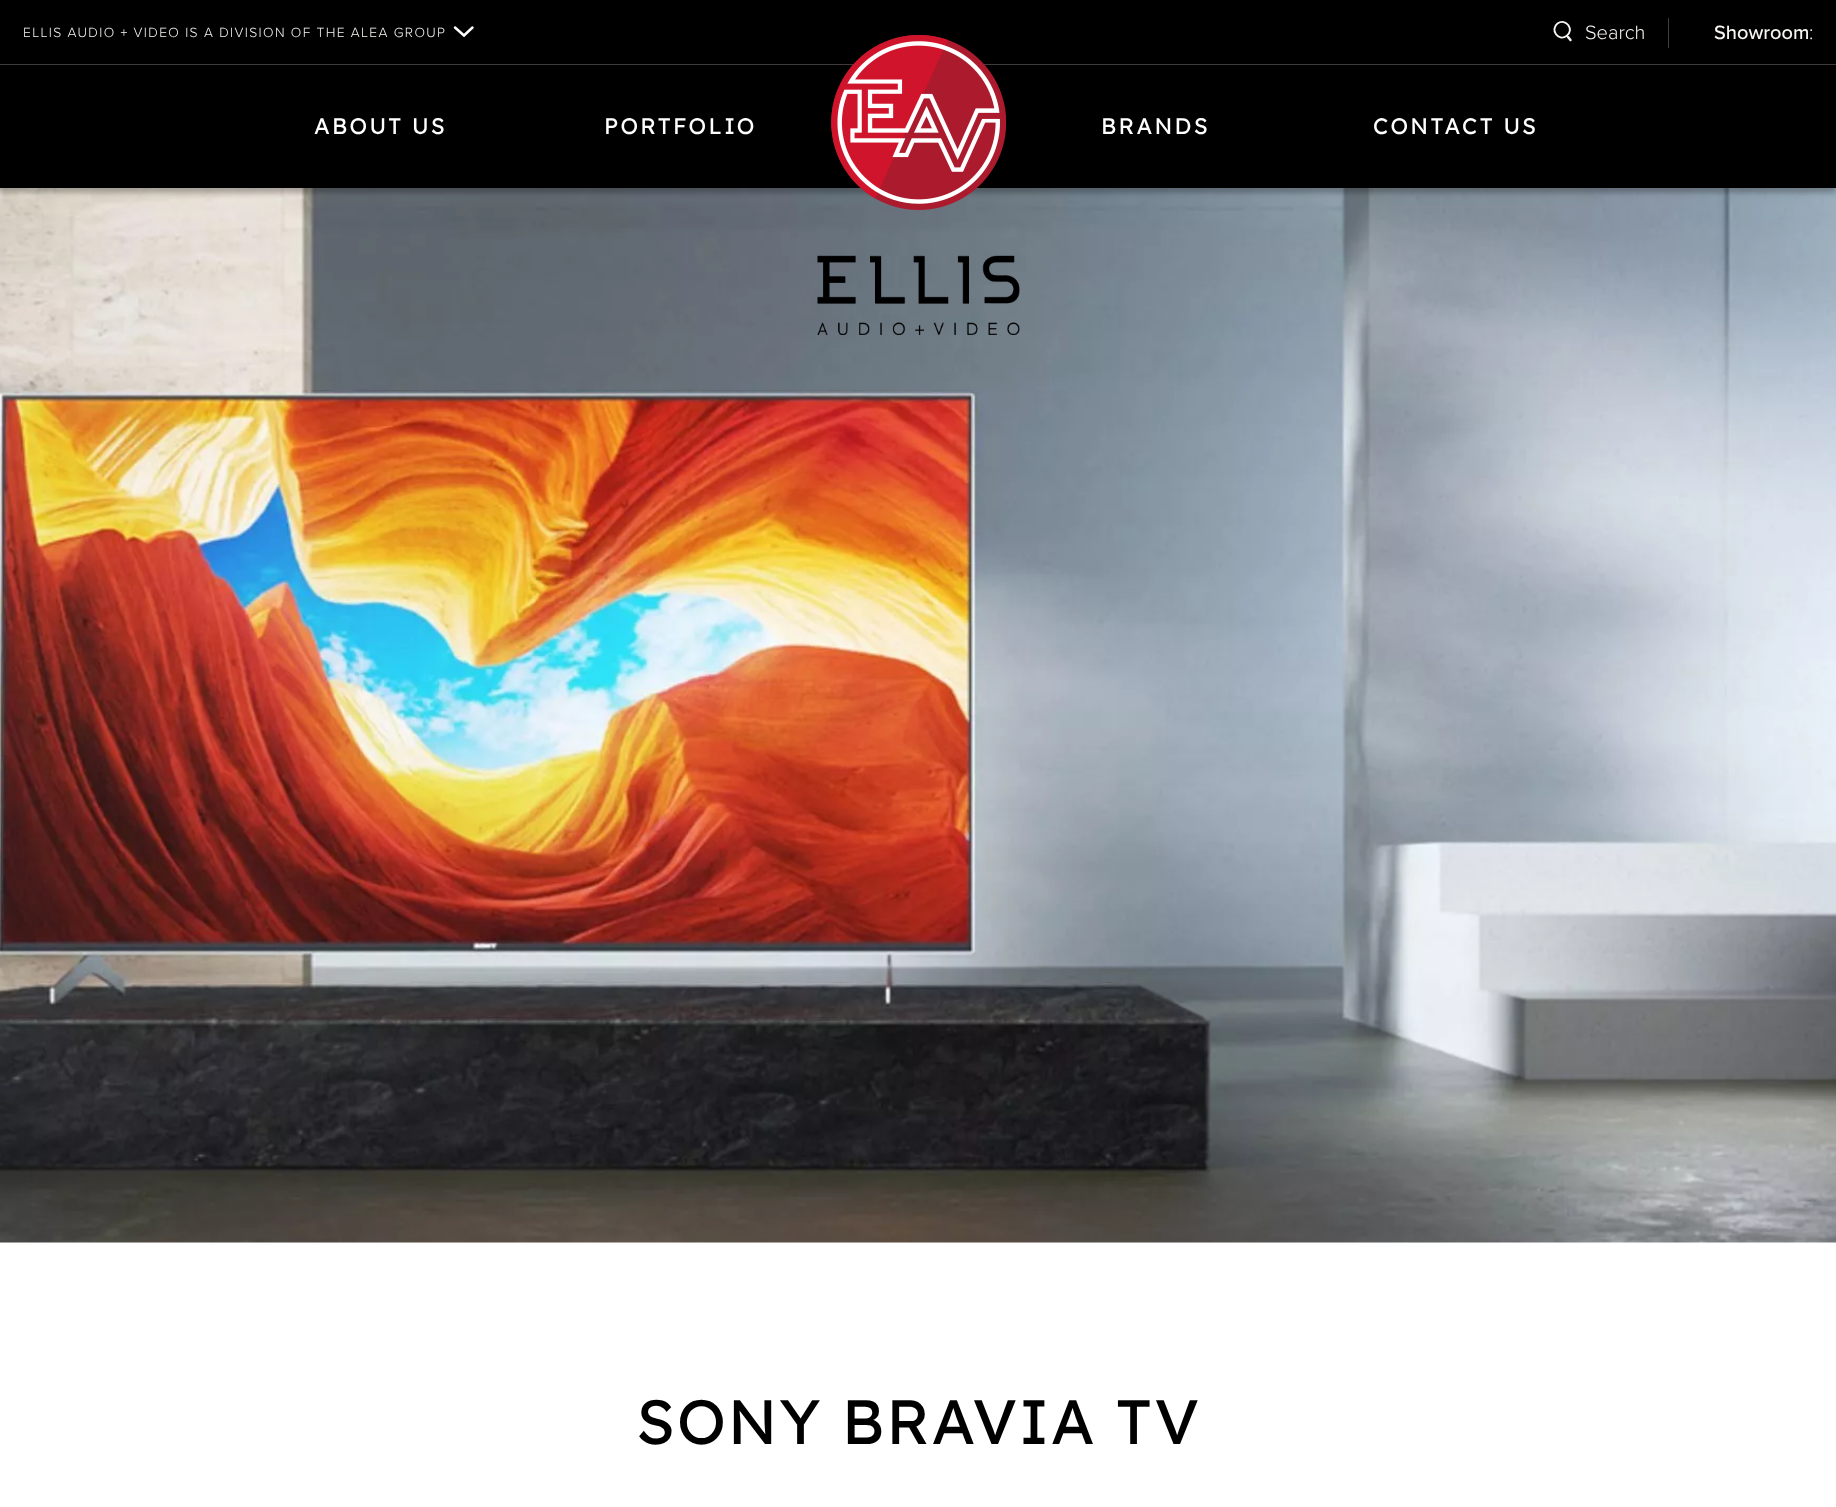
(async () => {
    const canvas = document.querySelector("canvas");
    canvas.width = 1836;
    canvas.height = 1507;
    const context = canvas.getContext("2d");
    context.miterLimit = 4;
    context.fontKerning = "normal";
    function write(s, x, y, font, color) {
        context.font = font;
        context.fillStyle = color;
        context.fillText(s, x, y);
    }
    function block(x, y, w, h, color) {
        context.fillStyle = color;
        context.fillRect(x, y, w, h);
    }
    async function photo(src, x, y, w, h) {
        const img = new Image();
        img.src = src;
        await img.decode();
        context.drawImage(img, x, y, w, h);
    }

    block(0, 0, 1836, 1507, "rgb(255, 255, 255)");
    await photo("media/2.png", 0, 188, 1836, 1055);
    context.fillStyle = "rgba(0, 0, 0, 0.25)";
    context.filter = "blur(2.5px)";
    context.beginPath();
    context.rect(0, 5, 1836, 188);
    context.fill();
    context.filter = "none";
    block(0, 0, 1836, 64, "rgb(0, 0, 0)");
    block(0, 64, 1836, 1, "rgb(62, 59, 56)");
    context.letterSpacing = "1.38px";
    write("ELLIS AUDIO + VIDEO IS A DIVISION OF THE ALEA GROUP", 23, 37, "300 13.75px Proxima Nova", "rgb(248, 246, 242)");
    context.beginPath();
    context.moveTo(455, 27.5);
    context.lineTo(464, 35.5);
    context.lineTo(472.5, 27.5);
    context.strokeStyle = "rgb(255, 255, 255)";
    context.lineWidth = 2.5;
    context.lineCap = "round";
    context.stroke();
    context.beginPath();
    context.moveTo(1557.5, 23.5);
    context.bezierCurveTo(1566, 17.5, 1575, 30, 1566.5, 36);
    context.bezierCurveTo(1558.5, 42, 1549.5, 29.5, 1557.5, 23.5);
    context.closePath();
    context.strokeStyle = "rgb(248, 246, 242)";
    context.lineWidth = 1.9;
    context.lineCap = "butt";
    context.stroke();
    context.beginPath();
    context.moveTo(1568, 37);
    context.lineTo(1570.5, 40);
    context.lineWidth = 2.5;
    context.lineCap = "round";
    context.stroke();
    context.letterSpacing = "0px";
    write("Search", 1585, 39, "300 20px Proxima Nova", "rgb(248, 246, 242)");
    block(1668, 18, 1, 30, "rgb(62, 59, 56)");
    write("Showroom", 1714, 39, "500 20px Proxima Nova", "rgb(248, 246, 242)");
    write(":", 1809, 39, "300 20px Proxima Nova", "rgb(248, 246, 242)");
    block(0, 65, 1836, 123, "rgb(0, 0, 0)");
    context.letterSpacing = "2.25px";
    write("ABOUT US", 314, 134, "22.5px Lexend", "rgb(255, 255, 255)");
    write("PORTFOLIO", 604, 134, "22.5px Lexend", "rgb(255, 255, 255)");
    await photo("media/1.png", 831, 35, 175, 175);
    write("BRANDS", 1101, 134, "22.5px Lexend", "rgb(255, 255, 255)");
    write("CONTACT US", 1373, 134, "22.5px Lexend", "rgb(255, 255, 255)");
    await photo("media/3.png", 817, 255, 203, 80);
    context.letterSpacing = "1.9px";
    write("SONY BRAVIA TV", 636, 1444, "62.5px Lexend", "rgb(0, 0, 0)");
})();
